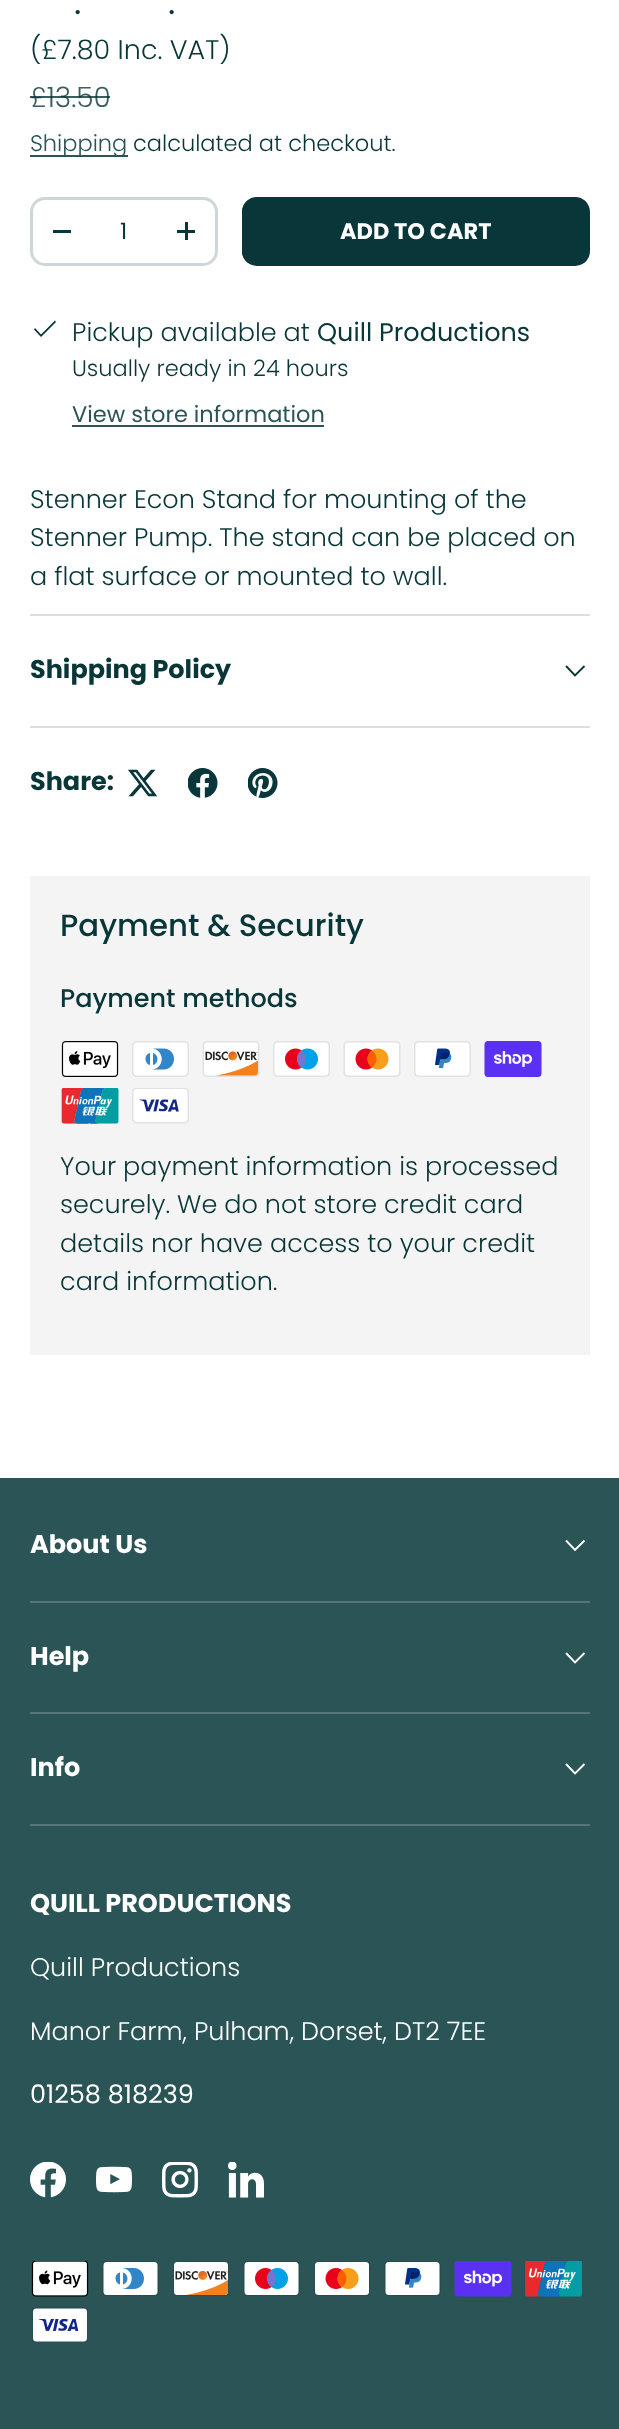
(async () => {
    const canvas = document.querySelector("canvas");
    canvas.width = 619;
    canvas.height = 2429;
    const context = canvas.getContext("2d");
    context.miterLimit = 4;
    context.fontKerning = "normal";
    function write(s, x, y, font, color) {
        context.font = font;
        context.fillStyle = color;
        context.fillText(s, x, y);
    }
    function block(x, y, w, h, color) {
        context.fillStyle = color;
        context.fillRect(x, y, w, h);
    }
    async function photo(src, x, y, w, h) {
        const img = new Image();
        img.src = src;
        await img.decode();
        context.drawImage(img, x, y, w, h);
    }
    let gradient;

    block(0, 0, 619, 2429, "rgb(255, 255, 255)");
    write(".", 74, 14, "35px Poppins", "rgb(9, 54, 56)");
    write(".", 168, 14, "35px Poppins", "rgb(9, 54, 56)");
    write("(£7.80 Inc. VAT)", 30, 59, "300 27px Poppins", "rgb(9, 54, 56)");
    write("£13.50", 30, 107, "300 28px Poppins", "rgb(58, 94, 96)");
    block(30, 96, 80, 2, "rgba(9, 54, 56, 0.8)");
    block(30, 155, 98, 2, "rgb(43, 84, 86)");
    write("Shipping", 30, 151, "300 22.5px Poppins", "rgb(43, 84, 86)");
    write("calculated at checkout.", 133, 151, "300 22.5px Poppins", "rgb(9, 54, 56)");
    context.beginPath();
    context.roundRect(31.5, 198.5, 185, 66, 13.5);
    context.strokeStyle = "rgb(206, 215, 215)";
    context.lineWidth = 3;
    context.stroke();
    block(53, 230, 18, 3, "rgb(9, 54, 56)");
    write("1", 120, 239, "22.5px Poppins", "rgb(9, 54, 56)");
    block(177, 230, 18, 3, "rgb(9, 54, 56)");
    block(185, 222, 3, 18, "rgb(9, 54, 56)");
    context.save();
    context.beginPath();
    context.roundRect(242, 197, 348, 69, 15);
    context.clip();
    gradient = context.createLinearGradient(-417, 109, 564, 353);
    gradient.addColorStop(0.6, "rgb(51, 94, 96)");
    gradient.addColorStop(0.6, "rgb(9, 54, 56)");
    gradient.addColorStop(1, "rgb(9, 54, 56)");
    context.fillStyle = gradient;
    context.fillRect(242, 200, 345, 63);
    context.restore();
    context.beginPath();
    context.roundRect(243.5, 198.5, 345, 66, 13.5);
    context.strokeStyle = "rgb(9, 54, 56)";
    context.stroke();
    write("ADD TO CART", 340, 239, "bold 22.5px Poppins", "rgb(255, 255, 255)");
    context.fillStyle = "rgb(9, 54, 56)";
    context.beginPath();
    context.moveTo(55, 320.5);
    context.lineTo(56, 322);
    context.lineTo(41, 337);
    context.lineTo(34, 329.5);
    context.lineTo(35, 328);
    context.lineTo(41, 334.5);
    context.closePath();
    context.fill();
    write("Pickup available at", 72, 341, "300 25.5px Poppins", "rgb(9, 54, 56)");
    write("Quill Productions", 317, 341, "25.5px Poppins", "rgb(9, 54, 56)");
    write("Usually ready in 24 hours", 72, 376, "300 22.5px Poppins", "rgb(9, 54, 56)");
    write("View store information", 72, 422, "22.5px Poppins", "rgb(43, 84, 86)");
    block(72, 425, 252, 2, "rgb(43, 84, 86)");
    write("Stenner Econ Stand for mounting of the", 30, 508, "300 25.5px Poppins", "rgb(9, 54, 56)");
    write("Stenner Pump. The stand can be placed on", 30, 546, "300 25.5px Poppins", "rgb(9, 54, 56)");
    write("a flat surface or mounted to wall.", 30, 585, "300 25.5px Poppins", "rgb(9, 54, 56)");
    block(30, 614, 560, 2, "rgb(218, 225, 225)");
    block(30, 726, 560, 2, "rgb(218, 225, 225)");
    write("Shipping Policy", 30, 678, "bold 25.5px Poppins", "rgb(9, 54, 56)");
    context.beginPath();
    context.moveTo(584.5, 666);
    context.lineTo(575, 675.5);
    context.lineTo(566, 666);
    context.lineWidth = 1.9;
    context.stroke();
    write("Share:", 30, 790, "bold 25.5px Poppins", "rgb(9, 54, 56)");
    await photo("media/1.png", 128, 769, 30, 28);
    await photo("media/2.png", 188, 768, 30, 30);
    await photo("media/3.png", 248, 768, 30, 30);
    block(30, 876, 560, 479, "rgb(244, 244, 244)");
    write("Payment & Security", 60, 936, "500 30.75px Poppins", "rgb(9, 54, 56)");
    write("Payment methods", 60, 1007, "500 25.5px Poppins", "rgb(9, 54, 56)");
    await photo("media/4.png", 61, 1041, 58, 36);
    await photo("media/5.png", 132, 1041, 57, 36);
    await photo("media/6.png", 202, 1041, 58, 36);
    await photo("media/7.png", 273, 1041, 57, 36);
    await photo("media/8.png", 343, 1041, 58, 36);
    await photo("media/9.png", 414, 1041, 57, 36);
    await photo("media/10.png", 484, 1041, 58, 36);
    await photo("media/11.png", 61, 1088, 58, 36);
    await photo("media/12.png", 132, 1088, 57, 36);
    write("Your payment information is processed", 60, 1175, "300 25.5px Poppins", "rgb(9, 54, 56)");
    write("securely. We do not store credit card", 60, 1213, "300 25.5px Poppins", "rgb(9, 54, 56)");
    write("details nor have access to your credit", 60, 1252, "300 25.5px Poppins", "rgb(9, 54, 56)");
    write("card information.", 60, 1290, "300 25.5px Poppins", "rgb(9, 54, 56)");
    block(0, 1478, 619, 951, "rgb(43, 84, 86)");
    block(30, 1601, 560, 2, "rgb(85, 118, 120)");
    write("About Us", 30, 1553, "bold 25.5px Poppins", "rgb(255, 255, 255)");
    context.beginPath();
    context.moveTo(584.5, 1540.5);
    context.lineTo(575, 1550);
    context.lineTo(566, 1540.5);
    context.strokeStyle = "rgb(255, 255, 255)";
    context.stroke();
    block(30, 1712, 560, 2, "rgb(85, 118, 120)");
    write("Help", 30, 1665, "bold 25.5px Poppins", "rgb(255, 255, 255)");
    context.beginPath();
    context.moveTo(584.5, 1653);
    context.lineTo(575, 1662.5);
    context.lineTo(566, 1653);
    context.stroke();
    block(30, 1824, 560, 2, "rgb(85, 118, 120)");
    write("Info", 30, 1776, "bold 25.5px Poppins", "rgb(255, 255, 255)");
    context.beginPath();
    context.moveTo(584.5, 1764);
    context.lineTo(575, 1773.5);
    context.lineTo(566, 1764);
    context.stroke();
    write("QUILL PRODUCTIONS", 30, 1912, "bold 25.5px Poppins", "rgb(255, 255, 255)");
    write("Quill Productions", 30, 1976, "300 25.5px Poppins", "rgb(255, 255, 255)");
    write("Manor Farm, Pulham, Dorset, DT2 7EE", 30, 2040, "300 25.5px Poppins", "rgb(255, 255, 255)");
    write("01258 818239", 30, 2103, "25.5px Poppins", "rgb(255, 255, 255)");
    await photo("media/13.png", 30, 2162, 36, 36);
    await photo("media/14.png", 96, 2166, 36, 27);
    await photo("media/15.png", 162, 2162, 36, 36);
    await photo("media/16.png", 228, 2162, 36, 36);
    await photo("media/17.png", 31, 2261, 58, 36);
    await photo("media/18.png", 102, 2261, 57, 35);
    await photo("media/19.png", 173, 2261, 56, 35);
    await photo("media/20.png", 243, 2261, 57, 35);
    await photo("media/21.png", 314, 2261, 56, 35);
    await photo("media/22.png", 384, 2261, 57, 35);
    await photo("media/23.png", 454, 2261, 58, 36);
    await photo("media/24.png", 525, 2261, 57, 36);
    await photo("media/25.png", 32, 2307, 56, 36);
})();
